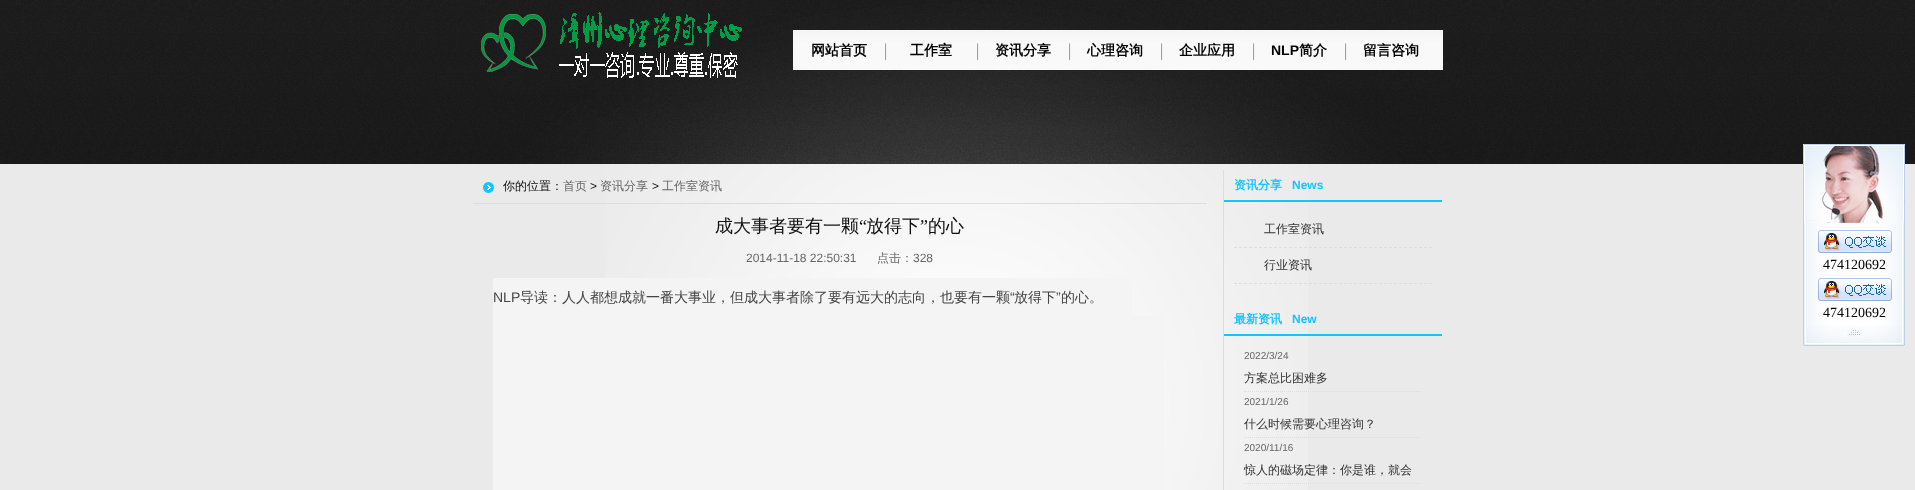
(async () => {
    const canvas = document.querySelector("canvas");
    canvas.width = 1915;
    canvas.height = 490;
    const context = canvas.getContext("2d");
    context.miterLimit = 4;
    context.fontKerning = "normal";
    function write(s, x, y, font, color) {
        context.font = font;
        context.fillStyle = color;
        context.fillText(s, x, y);
    }
    function block(x, y, w, h, color) {
        context.fillStyle = color;
        context.fillRect(x, y, w, h);
    }
    async function photo(src, x, y, w, h) {
        const img = new Image();
        img.src = src;
        await img.decode();
        context.drawImage(img, x, y, w, h);
    }

    block(0, 0, 1915, 490, "rgb(234, 234, 234)");
    await photo("media/1.png", 605, 164, 703, 326);
    await photo("media/2.png", 0, 0, 1915, 164);
    await photo("media/3.png", 458, 0, 1000, 164);
    await photo("media/4.png", 481, 12, 261, 66);
    await photo("media/5.png", 793, 30, 650, 40);
    write("网站首页", 811, 55, "bold 14px WenQuanYi Zen Hei", "rgb(0, 0, 0)");
    await photo("media/6.png", 885, 40, 2, 21);
    write("工作室", 910, 55, "bold 14px WenQuanYi Zen Hei", "rgb(0, 0, 0)");
    await photo("media/6.png", 977, 40, 2, 21);
    write("资讯分享", 995, 55, "bold 14px WenQuanYi Zen Hei", "rgb(0, 0, 0)");
    await photo("media/6.png", 1069, 40, 2, 21);
    write("心理咨询", 1087, 55, "bold 14px WenQuanYi Zen Hei", "rgb(0, 0, 0)");
    await photo("media/6.png", 1161, 40, 2, 21);
    write("企业应用", 1179, 55, "bold 14px WenQuanYi Zen Hei", "rgb(0, 0, 0)");
    await photo("media/6.png", 1253, 40, 2, 21);
    write("NLP", 1271, 55, "bold 14px Liberation Sans", "rgb(0, 0, 0)");
    write("简介", 1299, 55, "bold 14px WenQuanYi Zen Hei", "rgb(0, 0, 0)");
    await photo("media/6.png", 1345, 40, 2, 21);
    write("留言咨询", 1363, 55, "bold 14px WenQuanYi Zen Hei", "rgb(0, 0, 0)");
    block(473, 203, 734, 1, "rgb(221, 221, 221)");
    await photo("media/7.png", 483, 182, 11, 11);
    write("你的位置：", 503, 190, "500 12px WenQuanYi Zen Hei", "rgb(15, 15, 15)");
    write("首页", 563, 190, "500 12px WenQuanYi Zen Hei", "rgb(102, 102, 102)");
    write(">", 590, 190, "12px Liberation Sans", "rgb(15, 15, 15)");
    write("资讯分享", 600, 190, "500 12px WenQuanYi Zen Hei", "rgb(102, 102, 102)");
    write(">", 652, 190, "12px Liberation Sans", "rgb(15, 15, 15)");
    write("工作室资讯", 662, 190, "500 12px WenQuanYi Zen Hei", "rgb(102, 102, 102)");
    write("成大事者要有一颗", 715, 232, "500 18px WenQuanYi Zen Hei", "rgb(15, 15, 15)");
    write("“", 859, 232, "18px Liberation Serif", "rgb(15, 15, 15)");
    write("放得下", 866, 232, "500 18px WenQuanYi Zen Hei", "rgb(15, 15, 15)");
    write("”", 920, 232, "18px Liberation Serif", "rgb(15, 15, 15)");
    write("的心", 928, 232, "500 18px WenQuanYi Zen Hei", "rgb(15, 15, 15)");
    write("2014-11-18 22:50:31", 746, 262, "12px Liberation Sans", "rgb(102, 102, 102)");
    write("点击：", 877, 262, "500 12px WenQuanYi Zen Hei", "rgb(102, 102, 102)");
    write("328", 913, 262, "12px Liberation Sans", "rgb(102, 102, 102)");
    block(493, 278, 639, 38, "rgb(244, 244, 244)");
    write("NLP", 493, 302, "14px Liberation Sans", "rgb(68, 68, 68)");
    write("导读：人人都想成就一番大事业，但成大事者除了要有远大的志向，也要有一颗", 520, 302, "500 14px WenQuanYi Zen Hei", "rgb(68, 68, 68)");
    write("“", 1010, 302, "14px Liberation Sans", "rgb(68, 68, 68)");
    write("放得下", 1014, 302, "500 14px WenQuanYi Zen Hei", "rgb(68, 68, 68)");
    write("”", 1056, 302, "14px Liberation Sans", "rgb(68, 68, 68)");
    write("的心。", 1061, 302, "500 14px WenQuanYi Zen Hei", "rgb(68, 68, 68)");
    block(493, 316, 671, 174, "rgb(244, 244, 244)");
    block(1223, 170, 1, 320, "rgb(221, 221, 221)");
    block(1224, 200, 218, 2, "rgb(19, 197, 255)");
    write("资讯分享", 1234, 189, "bold 12px WenQuanYi Zen Hei", "rgb(19, 197, 255)");
    write("News", 1292, 189, "bold 12px Liberation Sans", "rgb(19, 197, 255)");
    context.beginPath();
    context.moveTo(1234, 247.5);
    context.lineTo(1432, 247.5);
    context.strokeStyle = "rgb(221, 221, 221)";
    context.setLineDash([3, 2]);
    context.stroke();
    write("工作室资讯", 1264, 233, "500 12px WenQuanYi Zen Hei", "rgb(51, 51, 51)");
    context.beginPath();
    context.moveTo(1234, 283.5);
    context.lineTo(1432, 283.5);
    context.stroke();
    write("行业资讯", 1264, 269, "500 12px WenQuanYi Zen Hei", "rgb(51, 51, 51)");
    block(1224, 334, 218, 2, "rgb(19, 197, 255)");
    write("最新资讯", 1234, 323, "bold 12px WenQuanYi Zen Hei", "rgb(19, 197, 255)");
    write("New", 1292, 323, "bold 12px Liberation Sans", "rgb(19, 197, 255)");
    write("2022/3/24", 1244, 359, "10px Liberation Sans", "rgb(102, 102, 102)");
    context.beginPath();
    context.moveTo(1244, 391.5);
    context.lineTo(1422, 391.5);
    context.setLineDash([1, 1]);
    context.stroke();
    write("方案总比困难多", 1244, 382, "500 12px WenQuanYi Zen Hei", "rgb(51, 51, 51)");
    write("2021/1/26", 1244, 405, "10px Liberation Sans", "rgb(102, 102, 102)");
    context.beginPath();
    context.moveTo(1244, 437.5);
    context.lineTo(1422, 437.5);
    context.stroke();
    write("什么时候需要心理咨询？", 1244, 428, "500 12px WenQuanYi Zen Hei", "rgb(51, 51, 51)");
    write("2020/11/16", 1244, 451, "10px Liberation Sans", "rgb(102, 102, 102)");
    context.beginPath();
    context.moveTo(1244, 483.5);
    context.lineTo(1422, 483.5);
    context.stroke();
    write("惊人的磁场定律：你是谁，就会", 1244, 474, "500 12px WenQuanYi Zen Hei", "rgb(51, 51, 51)");
    await photo("media/8.png", 1803, 144, 102, 79);
    await photo("media/9.png", 1803, 223, 102, 102);
    await photo("media/10.png", 1818, 230, 74, 23);
    write("474120692", 1823, 269, "14px Liberation Serif", "rgb(0, 0, 0)");
    await photo("media/10.png", 1818, 278, 74, 23);
    write("474120692", 1823, 317, "14px Liberation Serif", "rgb(0, 0, 0)");
    await photo("media/11.png", 1803, 325, 102, 21);
})();
